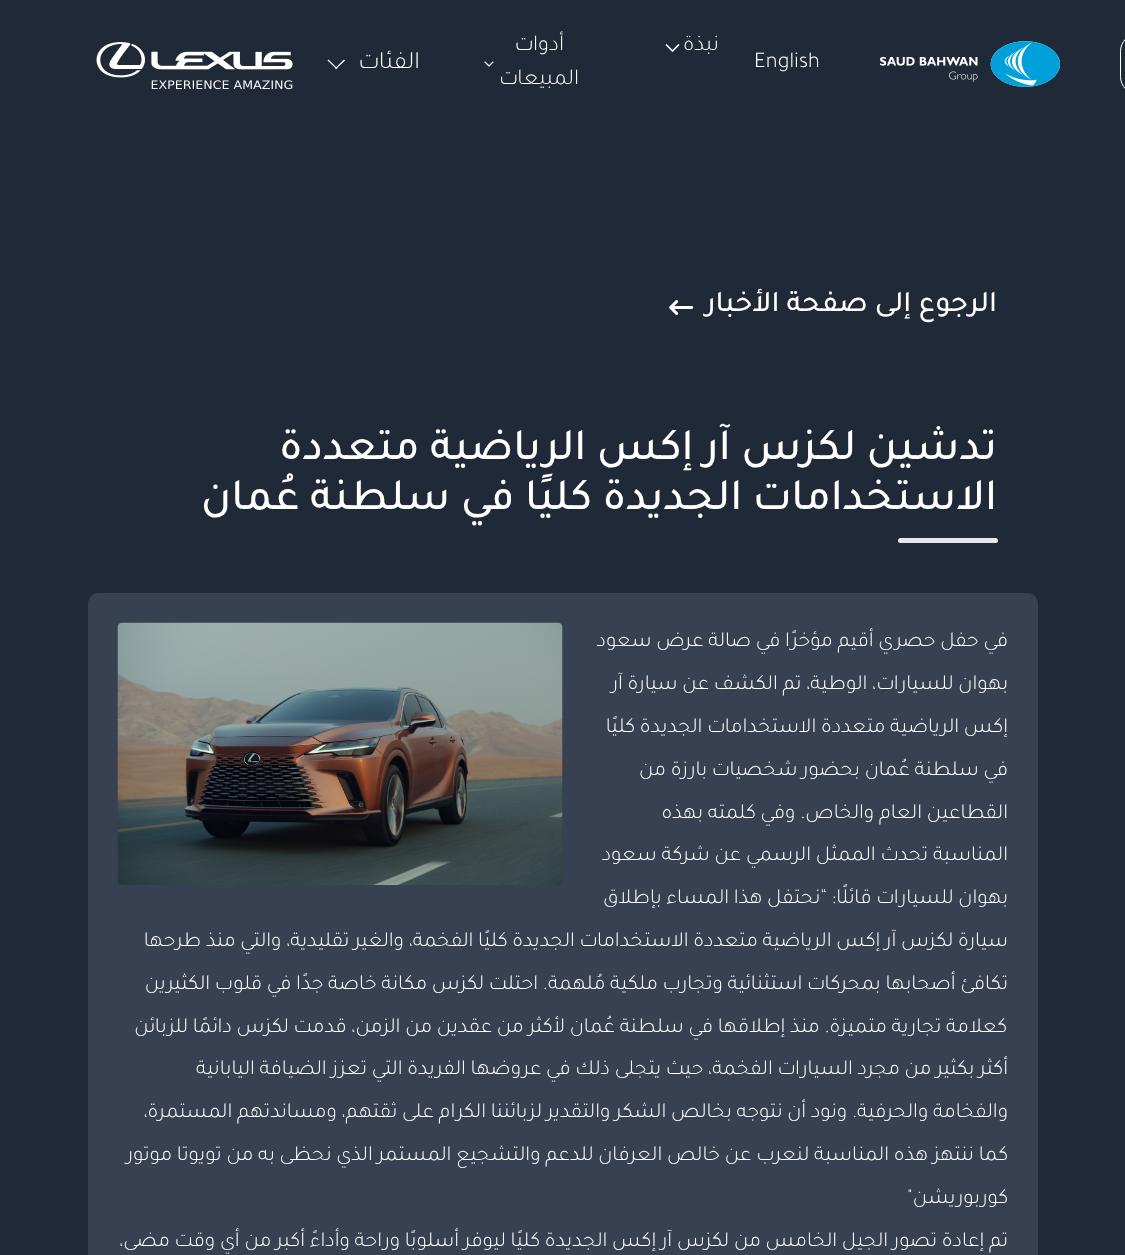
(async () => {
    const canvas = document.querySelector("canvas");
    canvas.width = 1125;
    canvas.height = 1255;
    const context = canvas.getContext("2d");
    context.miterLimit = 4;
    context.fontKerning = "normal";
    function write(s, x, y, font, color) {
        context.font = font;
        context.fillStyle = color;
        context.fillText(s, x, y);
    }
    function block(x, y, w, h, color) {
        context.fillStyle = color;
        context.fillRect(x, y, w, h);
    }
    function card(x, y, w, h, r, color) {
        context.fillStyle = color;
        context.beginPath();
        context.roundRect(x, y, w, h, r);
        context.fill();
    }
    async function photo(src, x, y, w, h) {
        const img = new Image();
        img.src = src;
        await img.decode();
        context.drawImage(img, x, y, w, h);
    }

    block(0, 0, 1125, 1255, "rgb(31, 41, 55)");
    context.beginPath();
    context.roundRect(1120.5, 33.5, 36, 61, 30.5);
    context.strokeStyle = "rgb(255, 255, 255)";
    context.stroke();
    await photo("media/1.png", 880, 41, 180, 46);
    write("English", 754, 67, "300 22.5px Tajawal", "rgb(255, 255, 255)");
    context.direction = "rtl";
    write("نبذة", 719, 50, "300 22.5px Tajawal", "rgb(255, 255, 255)");
    context.beginPath();
    context.moveTo(678.5, 45);
    context.lineTo(672.5, 51);
    context.lineTo(666.5, 45);
    context.lineWidth = 1.7;
    context.lineCap = "round";
    context.lineJoin = "round";
    context.stroke();
    write("أدوات", 564, 50, "300 22.5px Tajawal", "rgb(255, 255, 255)");
    context.beginPath();
    context.moveTo(493, 62);
    context.lineTo(489, 66);
    context.lineTo(485, 62);
    context.lineWidth = 1.1;
    context.stroke();
    write("المبيعات", 579, 84, "300 22.5px Tajawal", "rgb(255, 255, 255)");
    context.letterSpacing = "1.25px";
    write("الفئات", 420, 68, "300 25px Tajawal", "rgb(255, 255, 255)");
    context.beginPath();
    context.moveTo(328.5, 59.5);
    context.lineTo(337.5, 68.5);
    context.lineTo(336.5, 69);
    context.lineTo(327.5, 60.5);
    context.closePath();
    context.fill();
    context.beginPath();
    context.moveTo(345, 60.5);
    context.lineTo(336, 69);
    context.lineTo(335, 68.5);
    context.lineTo(344, 59.5);
    context.closePath();
    context.fill();
    await photo("media/2.png", 96, 42, 197, 48);
    context.letterSpacing = "0px";
    write("الرجوع إلى صفحة الأخبار", 997, 311, "500 30px Tajawal", "rgb(255, 255, 255)");
    await photo("media/3.png", 669, 300, 25, 15);
    write("تدشين لكزس آر إكس الرياضية متعددة", 997, 459, "500 45px Tajawal", "rgb(255, 255, 255)");
    write("الاستخدامات الجديدة كليًا في سلطنة عُمان", 997, 509, "500 45px Tajawal", "rgb(255, 255, 255)");
    card(898, 538, 100, 5, 2.5, "rgb(229, 231, 235)");
    card(88, 593, 950, 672, 10, "rgb(55, 65, 81)");
    await photo("media/4.png", 117, 622, 446, 263);
    write("في حفل حصري أقيم مؤخرًا في صالة عرض سعود", 1008, 646, "300 21.4px Tajawal", "rgb(255, 255, 255)");
    write("بهوان للسيارات، الوطية، تم الكشف عن سيارة آر", 1008, 689, "300 21.4px Tajawal", "rgb(255, 255, 255)");
    write("إكس الرياضية متعددة الاستخدامات الجديدة كليًا", 1008, 732, "300 21.4px Tajawal", "rgb(255, 255, 255)");
    write("في سلطنة عُمان بحضور شخصيات بارزة من", 1008, 775, "300 21.4px Tajawal", "rgb(255, 255, 255)");
    write("القطاعين العام والخاص. وفي كلمته بهذه", 1008, 818, "300 21.4px Tajawal", "rgb(255, 255, 255)");
    write("المناسبة تحدث الممثل الرسمي عن شركة سعود", 1008, 860, "300 21.4px Tajawal", "rgb(255, 255, 255)");
    write("بهوان للسيارات قائلًا: “نحتفل هذا المساء بإطلاق", 1008, 903, "300 21.4px Tajawal", "rgb(255, 255, 255)");
    write("سيارة لكزس آر إكس الرياضية متعددة الاستخدامات الجديدة كليًا الفخمة، والغير تقليدية، والتي منذ طرحها", 1008, 946, "300 21.4px Tajawal", "rgb(255, 255, 255)");
    write("تكافئ أصحابها بمحركات استثنائية وتجارب ملكية مُلهمة. احتلت لكزس مكانة خاصة جدًا في قلوب الكثيرين", 1008, 989, "300 21.4px Tajawal", "rgb(255, 255, 255)");
    write("كعلامة تجارية متميزة. منذ إطلاقها في سلطنة عُمان لأكثر من عقدين من الزمن، قدمت لكزس دائمًا للزبائن", 1007, 1032, "300 21.4px Tajawal", "rgb(255, 255, 255)");
    write("أكثر بكثير من مجرد السيارات الفخمة، حيث يتجلى ذلك في عروضها الفريدة التي تعزز الضيافة اليابانية", 1008, 1074, "300 21.4px Tajawal", "rgb(255, 255, 255)");
    write("والفخامة والحرفية. ونود أن نتوجه بخالص الشكر والتقدير لزبائننا الكرام على ثقتهم، ومساندتهم المستمرة،", 1008, 1117, "300 21.4px Tajawal", "rgb(255, 255, 255)");
    write("كما ننتهز هذه المناسبة لنعرب عن خالص العرفان للدعم والتشجيع المستمر الذي نحظى به من تويوتا موتور", 1008, 1160, "300 21.4px Tajawal", "rgb(255, 255, 255)");
    write("كوربوريشن\"", 1008, 1203, "300 21.4px Tajawal", "rgb(255, 255, 255)");
    write("تم إعادة تصور الجيل الخامس من لكزس آر إكس الجديدة كليًا ليوفر أسلوبًا وراحة وأداءً أكبر من أي وقت مضى،", 1008, 1246, "300 21.4px Tajawal", "rgb(255, 255, 255)");
})();
